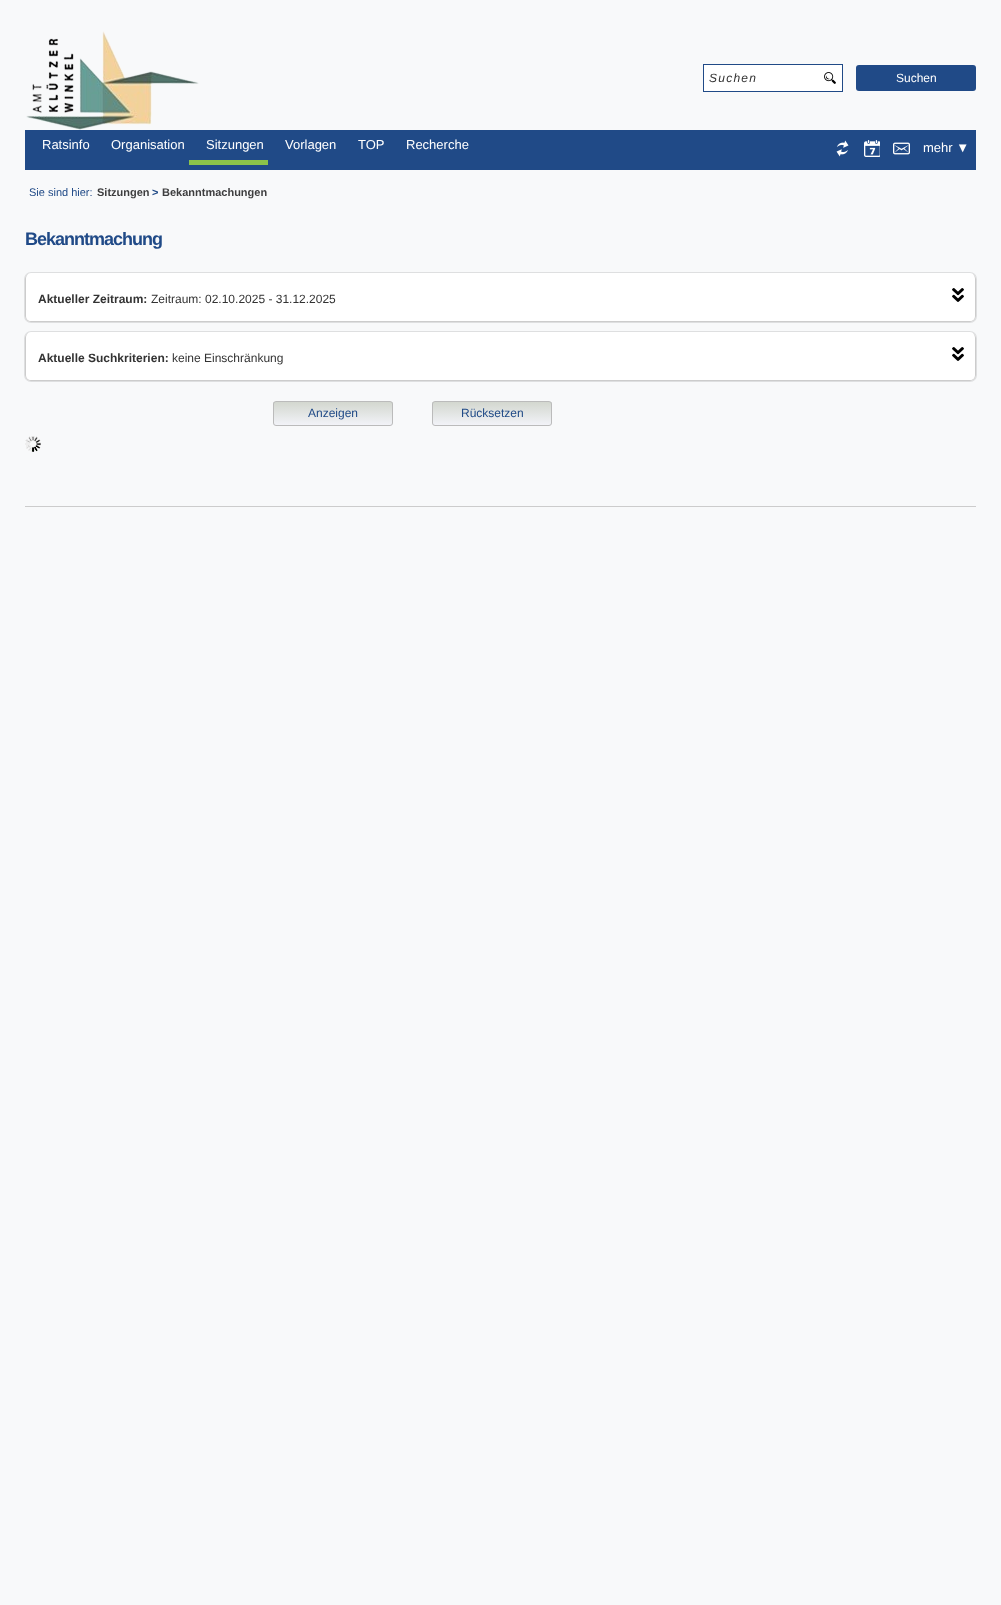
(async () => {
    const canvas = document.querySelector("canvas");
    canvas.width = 1001;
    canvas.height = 1605;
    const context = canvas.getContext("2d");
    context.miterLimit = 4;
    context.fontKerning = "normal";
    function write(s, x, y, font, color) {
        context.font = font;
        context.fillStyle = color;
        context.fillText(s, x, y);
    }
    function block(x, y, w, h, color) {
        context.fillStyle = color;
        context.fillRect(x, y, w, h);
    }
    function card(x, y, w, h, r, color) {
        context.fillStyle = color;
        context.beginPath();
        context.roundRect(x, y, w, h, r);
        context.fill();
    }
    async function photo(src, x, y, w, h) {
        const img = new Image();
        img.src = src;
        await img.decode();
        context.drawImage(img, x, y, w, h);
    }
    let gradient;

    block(0, 0, 1001, 1605, "rgb(248, 249, 250)");
    await photo("media/1.png", 26, 31, 173, 99);
    block(704, 65, 138, 26, "rgb(255, 255, 255)");
    await photo("media/2.png", 824, 72, 12, 12);
    context.strokeStyle = "rgb(32, 74, 135)";
    context.strokeRect(703.5, 64.5, 139, 27);
    context.letterSpacing = "1.25px";
    write("Suchen", 709, 82, "italic 12px Liberation Sans", "rgb(51, 51, 51)");
    card(856, 65, 120, 26, 3, "rgb(32, 74, 135)");
    context.letterSpacing = "0px";
    write("Suchen", 896, 82, "12px Liberation Sans", "rgb(255, 255, 255)");
    block(25, 130, 951, 40, "rgb(32, 74, 135)");
    write("Ratsinfo", 42, 149, "13px Liberation Sans", "rgb(255, 255, 255)");
    write("Organisation", 111, 149, "13px Liberation Sans", "rgb(255, 255, 255)");
    block(189, 160, 79, 5, "rgb(139, 195, 74)");
    write("Sitzungen", 206, 149, "13px Liberation Sans", "rgb(255, 255, 255)");
    write("Vorlagen", 285, 149, "13px Liberation Sans", "rgb(255, 255, 255)");
    write("TOP", 358, 149, "13px Liberation Sans", "rgb(255, 255, 255)");
    write("Recherche", 406, 149, "13px Liberation Sans", "rgb(255, 255, 255)");
    await photo("media/3.png", 836, 140, 13, 17);
    await photo("media/4.png", 864, 140, 16, 17);
    await photo("media/5.png", 893, 142, 17, 13);
    write("mehr ▼", 923, 152, "13px Liberation Sans", "rgb(255, 255, 255)");
    write("Sie sind hier:", 29, 196, "11px Liberation Sans", "rgb(32, 74, 135)");
    write("Sitzungen", 97, 196, "bold 11px Liberation Sans", "rgb(62, 62, 63)");
    write(">", 152, 196, "bold 11px Liberation Sans", "rgb(32, 74, 135)");
    write("Bekanntmachungen", 162, 196, "bold 11px Liberation Sans", "rgb(62, 62, 63)");
    context.letterSpacing = "-1px";
    write("Bekanntmachung", 25, 245, "bold 18px Liberation Sans", "rgb(32, 74, 135)");
    context.fillStyle = "rgba(0, 0, 0, 0.1)";
    context.filter = "blur(0.5px)";
    context.beginPath();
    context.roundRect(24, 272, 953, 51, 7);
    context.fill();
    context.filter = "none";
    card(25, 273, 951, 49, 6, "rgb(255, 255, 255)");
    context.fillStyle = "rgb(204, 204, 204)";
    context.beginPath();
    context.moveTo(31, 273);
    context.lineTo(970, 273);
    context.bezierCurveTo(973, 273, 976, 276, 976, 279);
    context.lineTo(976, 316);
    context.bezierCurveTo(976, 319, 973, 322, 970, 322);
    context.lineTo(31, 322);
    context.bezierCurveTo(28, 322, 25, 319, 25, 316);
    context.lineTo(25, 279);
    context.bezierCurveTo(25, 276, 28, 273, 31, 273);
    context.closePath();
    context.moveTo(31, 273);
    context.lineTo(970, 273);
    context.bezierCurveTo(973, 273, 975, 276, 975, 279);
    context.lineTo(975, 316);
    context.bezierCurveTo(975, 319, 973, 321, 970, 321);
    context.lineTo(31, 321);
    context.bezierCurveTo(28, 321, 26, 319, 26, 316);
    context.lineTo(26, 279);
    context.bezierCurveTo(26, 276, 28, 273, 31, 273);
    context.closePath();
    context.fill("evenodd");
    context.letterSpacing = "0px";
    write("Aktueller Zeitraum:", 38, 303, "bold 12px Liberation Sans", "rgb(51, 51, 51)");
    write("Zeitraum: 02.10.2025 - 31.12.2025", 151, 303, "12px Liberation Sans", "rgb(51, 51, 51)");
    await photo("media/6.png", 952, 288, 12, 14);
    context.fillStyle = "rgba(0, 0, 0, 0.1)";
    context.filter = "blur(0.5px)";
    context.beginPath();
    context.roundRect(24, 331, 953, 51, 7);
    context.fill();
    context.filter = "none";
    card(25, 332, 951, 49, 6, "rgb(255, 255, 255)");
    context.fillStyle = "rgb(204, 204, 204)";
    context.beginPath();
    context.moveTo(31, 332);
    context.lineTo(970, 332);
    context.bezierCurveTo(973, 332, 976, 335, 976, 338);
    context.lineTo(976, 375);
    context.bezierCurveTo(976, 378, 973, 381, 970, 381);
    context.lineTo(31, 381);
    context.bezierCurveTo(28, 381, 25, 378, 25, 375);
    context.lineTo(25, 338);
    context.bezierCurveTo(25, 335, 28, 332, 31, 332);
    context.closePath();
    context.moveTo(31, 332);
    context.lineTo(970, 332);
    context.bezierCurveTo(973, 332, 975, 335, 975, 338);
    context.lineTo(975, 375);
    context.bezierCurveTo(975, 378, 973, 380, 970, 380);
    context.lineTo(31, 380);
    context.bezierCurveTo(28, 380, 26, 378, 26, 375);
    context.lineTo(26, 338);
    context.bezierCurveTo(26, 335, 28, 332, 31, 332);
    context.closePath();
    context.fill("evenodd");
    write("Aktuelle Suchkriterien:", 38, 362, "bold 12px Liberation Sans", "rgb(51, 51, 51)");
    write("keine Einschränkung", 172, 362, "12px Liberation Sans", "rgb(51, 51, 51)");
    await photo("media/6.png", 952, 347, 12, 14);
    context.save();
    context.beginPath();
    context.roundRect(273, 401, 120, 25, 3);
    context.clip();
    gradient = context.createLinearGradient(274, 402, 274, 425);
    gradient.addColorStop(0, "rgb(211, 215, 207)");
    gradient.addColorStop(1, "rgb(242, 243, 248)");
    context.fillStyle = gradient;
    context.fillRect(273, 402, 120, 23);
    context.restore();
    context.beginPath();
    context.roundRect(273.5, 401.5, 119, 24, 2.5);
    context.strokeStyle = "rgb(187, 187, 187)";
    context.stroke();
    write("Anzeigen", 308, 417, "12px Liberation Sans", "rgb(32, 74, 135)");
    context.save();
    context.beginPath();
    context.roundRect(432, 401, 120, 25, 3);
    context.clip();
    gradient = context.createLinearGradient(433, 402, 433, 425);
    gradient.addColorStop(0, "rgb(211, 215, 207)");
    gradient.addColorStop(1, "rgb(242, 243, 248)");
    context.fillStyle = gradient;
    context.fillRect(432, 402, 120, 23);
    context.restore();
    context.beginPath();
    context.roundRect(432.5, 401.5, 119, 24, 2.5);
    context.stroke();
    write("Rücksetzen", 461, 417, "12px Liberation Sans", "rgb(32, 74, 135)");
    await photo("media/7.png", 25, 436, 16, 16);
    block(25, 506, 951, 1, "rgb(204, 204, 204)");
})();
